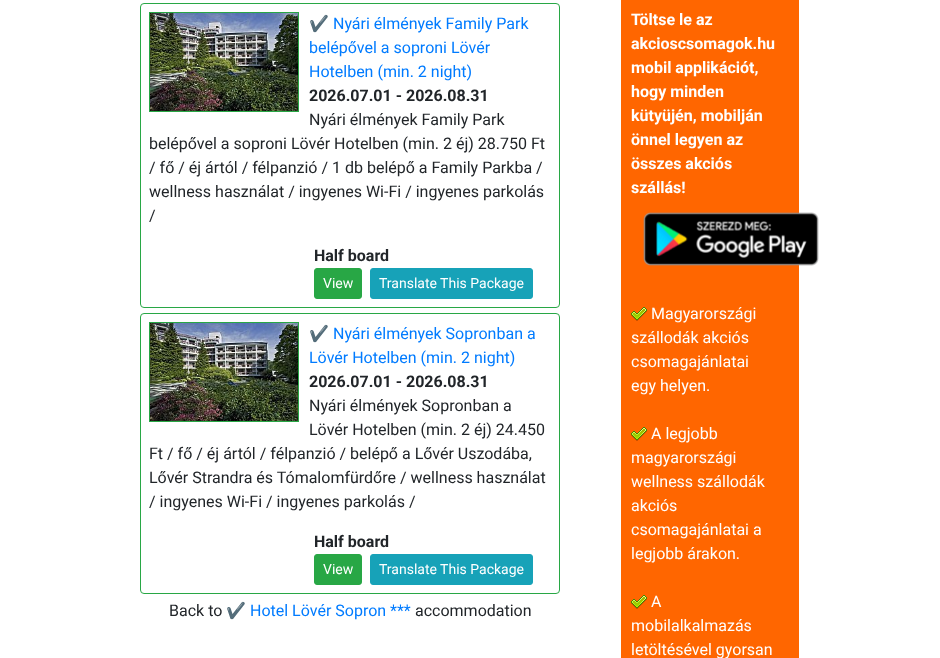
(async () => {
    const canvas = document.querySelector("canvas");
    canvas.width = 940;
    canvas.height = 658;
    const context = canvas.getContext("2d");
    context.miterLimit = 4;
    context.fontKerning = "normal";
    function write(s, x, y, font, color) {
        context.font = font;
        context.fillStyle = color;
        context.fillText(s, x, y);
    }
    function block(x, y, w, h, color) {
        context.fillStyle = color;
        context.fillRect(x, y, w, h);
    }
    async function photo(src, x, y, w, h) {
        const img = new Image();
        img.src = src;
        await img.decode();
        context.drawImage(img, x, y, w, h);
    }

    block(0, 0, 940, 658, "rgb(255, 255, 255)");
    context.beginPath();
    context.roundRect(140.5, 3.5, 419, 304, 3.5);
    context.strokeStyle = "rgb(40, 167, 69)";
    context.stroke();
    context.strokeRect(149.5, 12.5, 149, 99);
    await photo("media/1.png", 150, 13, 148, 98);
    write("✔️", 309, 29, "16px Noto Color Emoji", "rgb(0, 123, 255)");
    write("Nyári élmények Family Park", 333, 29, "16px Roboto", "rgb(0, 123, 255)");
    write("belépővel a soproni Lövér", 309, 53, "16px Roboto", "rgb(0, 123, 255)");
    write("Hotelben (min. 2 night)", 309, 77, "16px Roboto", "rgb(0, 123, 255)");
    write("2026.07.01 - 2026.08.31", 309, 101, "bold 16px Roboto", "rgb(33, 37, 41)");
    write("Nyári élmények Family Park", 309, 125, "16px Roboto", "rgb(33, 37, 41)");
    write("belépővel a soproni Lövér Hotelben (min. 2 éj) 28.750 Ft", 149, 149, "16px Roboto", "rgb(33, 37, 41)");
    write("/ fő / éj ártól / félpanzió / 1 db belépő a Family Parkba /", 149, 173, "16px Roboto", "rgb(33, 37, 41)");
    write("wellness használat / ingyenes Wi-Fi / ingyenes parkolás", 149, 197, "16px Roboto", "rgb(33, 37, 41)");
    write("/", 149, 221, "16px Roboto", "rgb(33, 37, 41)");
    write("Half board", 314, 261, "bold 16px Roboto", "rgb(33, 37, 41)");
    context.fillStyle = "rgb(40, 167, 69)";
    context.beginPath();
    context.roundRect(314.5, 268.5, 47, 30, 2.5);
    context.fill();
    context.stroke();
    write("View", 323, 288, "14px Roboto", "rgb(255, 255, 255)");
    context.fillStyle = "rgb(23, 162, 184)";
    context.beginPath();
    context.roundRect(370.5, 268.5, 162, 30, 2.5);
    context.fill();
    context.strokeStyle = "rgb(23, 162, 184)";
    context.stroke();
    write("Translate This Package", 379, 288, "14px Roboto", "rgb(255, 255, 255)");
    context.beginPath();
    context.roundRect(140.5, 313.5, 419, 280, 3.5);
    context.strokeStyle = "rgb(40, 167, 69)";
    context.stroke();
    context.strokeRect(149.5, 322.5, 149, 99);
    await photo("media/2.png", 150, 323, 148, 98);
    write("✔️", 309, 339, "16px Noto Color Emoji", "rgb(0, 123, 255)");
    write("Nyári élmények Sopronban a", 333, 339, "16px Roboto", "rgb(0, 123, 255)");
    write("Lövér Hotelben (min. 2 night)", 309, 363, "16px Roboto", "rgb(0, 123, 255)");
    write("2026.07.01 - 2026.08.31", 309, 387, "bold 16px Roboto", "rgb(33, 37, 41)");
    write("Nyári élmények Sopronban a", 309, 411, "16px Roboto", "rgb(33, 37, 41)");
    write("Lövér Hotelben (min. 2 éj) 24.450", 309, 435, "16px Roboto", "rgb(33, 37, 41)");
    write("Ft / fő / éj ártól / félpanzió / belépő a Lővér Uszodába,", 149, 459, "16px Roboto", "rgb(33, 37, 41)");
    write("Lővér Strandra és Tómalomfürdőre / wellness használat", 149, 483, "16px Roboto", "rgb(33, 37, 41)");
    write("/ ingyenes Wi-Fi / ingyenes parkolás /", 149, 507, "16px Roboto", "rgb(33, 37, 41)");
    write("Half board", 314, 547, "bold 16px Roboto", "rgb(33, 37, 41)");
    context.fillStyle = "rgb(40, 167, 69)";
    context.beginPath();
    context.roundRect(314.5, 554.5, 47, 30, 2.5);
    context.fill();
    context.stroke();
    write("View", 323, 574, "14px Roboto", "rgb(255, 255, 255)");
    context.fillStyle = "rgb(23, 162, 184)";
    context.beginPath();
    context.roundRect(370.5, 554.5, 162, 30, 2.5);
    context.fill();
    context.strokeStyle = "rgb(23, 162, 184)";
    context.stroke();
    write("Translate This Package", 379, 574, "14px Roboto", "rgb(255, 255, 255)");
    write("Back to", 169, 616, "16px Roboto", "rgb(33, 37, 41)");
    write("✔️", 226, 616, "16px Noto Color Emoji", "rgb(0, 123, 255)");
    write("Hotel Lövér Sopron ***", 250, 616, "16px Roboto", "rgb(0, 123, 255)");
    write("accommodation", 415, 616, "16px Roboto", "rgb(33, 37, 41)");
    block(621, 0, 178, 658, "rgb(255, 102, 0)");
    write("Töltse le az", 631, 25, "bold 16px Roboto", "rgb(255, 255, 255)");
    write("akcioscsomagok.hu", 631, 49, "bold 16px Roboto", "rgb(255, 255, 255)");
    write("mobil applikációt,", 631, 73, "bold 16px Roboto", "rgb(255, 255, 255)");
    write("hogy minden", 631, 97, "bold 16px Roboto", "rgb(255, 255, 255)");
    write("kütyüjén, mobilján", 631, 121, "bold 16px Roboto", "rgb(255, 255, 255)");
    write("önnel legyen az", 631, 145, "bold 16px Roboto", "rgb(255, 255, 255)");
    write("összes akciós", 631, 169, "bold 16px Roboto", "rgb(255, 255, 255)");
    write("szállás!", 631, 193, "bold 16px Roboto", "rgb(255, 255, 255)");
    await photo("media/3.png", 643, 212, 176, 54);
    await photo("media/4.png", 631, 307, 16, 14);
    write("Magyarországi", 651, 319, "16px Roboto", "rgb(255, 255, 255)");
    write("szállodák akciós", 631, 343, "16px Roboto", "rgb(255, 255, 255)");
    write("csomagajánlatai", 631, 367, "16px Roboto", "rgb(255, 255, 255)");
    write("egy helyen.", 631, 391, "16px Roboto", "rgb(255, 255, 255)");
    await photo("media/4.png", 631, 427, 16, 14);
    write("A legjobb", 651, 439, "16px Roboto", "rgb(255, 255, 255)");
    write("magyarországi", 631, 463, "16px Roboto", "rgb(255, 255, 255)");
    write("wellness szállodák", 631, 487, "16px Roboto", "rgb(255, 255, 255)");
    write("akciós", 631, 511, "16px Roboto", "rgb(255, 255, 255)");
    write("csomagajánlatai a", 631, 535, "16px Roboto", "rgb(255, 255, 255)");
    write("legjobb árakon.", 631, 559, "16px Roboto", "rgb(255, 255, 255)");
    await photo("media/4.png", 631, 595, 16, 14);
    write("A", 651, 607, "16px Roboto", "rgb(255, 255, 255)");
    write("mobilalkalmazás", 631, 631, "16px Roboto", "rgb(255, 255, 255)");
    write("letöltésével gyorsan", 631, 655, "16px Roboto", "rgb(255, 255, 255)");
})();
